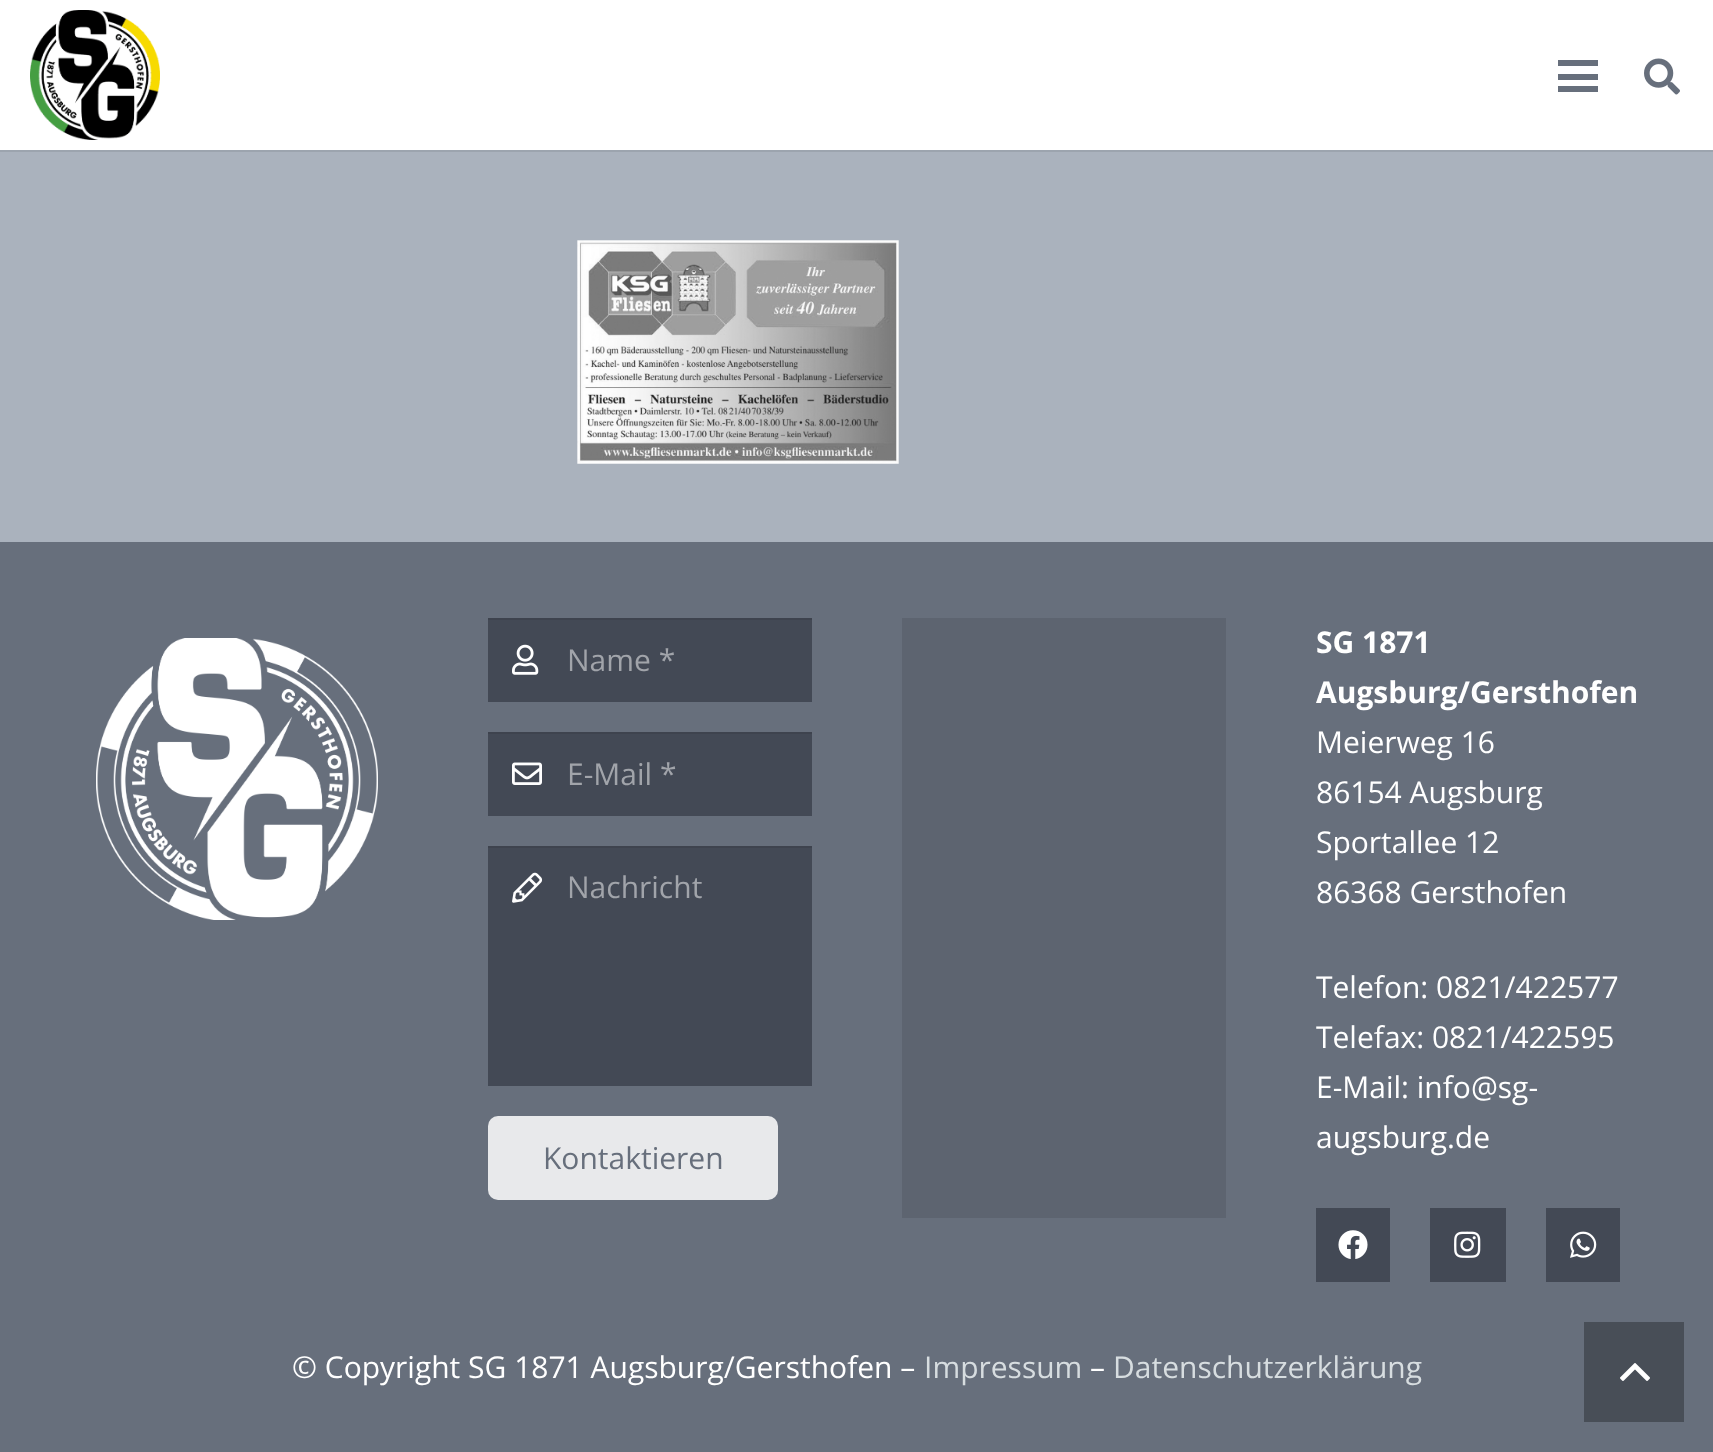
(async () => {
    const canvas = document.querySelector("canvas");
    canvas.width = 1713;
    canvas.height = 1452;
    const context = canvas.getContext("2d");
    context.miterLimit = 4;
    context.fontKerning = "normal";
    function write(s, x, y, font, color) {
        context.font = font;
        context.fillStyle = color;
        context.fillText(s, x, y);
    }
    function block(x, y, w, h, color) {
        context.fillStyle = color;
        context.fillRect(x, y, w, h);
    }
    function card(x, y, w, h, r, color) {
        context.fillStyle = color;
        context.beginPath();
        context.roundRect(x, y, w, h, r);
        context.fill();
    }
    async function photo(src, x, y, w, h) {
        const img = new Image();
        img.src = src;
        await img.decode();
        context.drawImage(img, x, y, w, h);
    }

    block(0, 0, 1713, 1452, "rgb(170, 178, 189)");
    block(0, 150, 1713, 2, "rgb(156, 164, 174)");
    block(0, 0, 1713, 150, "rgb(255, 255, 255)");
    await photo("media/1.png", 30, 10, 130, 130);
    block(1558, 74, 40, 6, "rgb(103, 111, 124)");
    block(1558, 60, 40, 6, "rgb(103, 111, 124)");
    block(1558, 86, 40, 6, "rgb(103, 111, 124)");
    await photo("media/2.png", 1644, 58, 36, 37);
    await photo("media/3.png", 577, 240, 322, 224);
    block(0, 542, 1713, 910, "rgb(103, 111, 124)");
    await photo("media/4.png", 96, 638, 282, 282);
    block(488, 620, 324, 82, "rgb(67, 73, 85)");
    await photo("media/5.png", 512, 644, 27, 31);
    block(488, 618, 324, 2, "rgb(62, 67, 78)");
    write("Name *", 567, 671, "30px Open Sans", "rgb(161, 164, 170)");
    block(488, 734, 324, 82, "rgb(67, 73, 85)");
    await photo("media/6.png", 512, 762, 30, 23);
    block(488, 732, 324, 2, "rgb(62, 67, 78)");
    write("E-Mail *", 567, 785, "30px Open Sans", "rgb(161, 164, 170)");
    block(488, 848, 324, 238, "rgb(67, 73, 85)");
    await photo("media/7.png", 512, 872, 31, 31);
    block(488, 846, 324, 2, "rgb(62, 67, 78)");
    write("Nachricht", 567, 898, "30px Open Sans", "rgb(161, 164, 170)");
    card(488, 1116, 290, 84, 10, "rgb(232, 233, 235)");
    write("Kontaktieren", 543, 1169, "30px Open Sans", "rgb(103, 111, 124)");
    block(902, 618, 324, 600, "rgb(93, 100, 112)");
    write("SG 1871", 1316, 653, "bold 30px Open Sans", "rgb(255, 255, 255)");
    write("Augsburg/Gersthofen", 1316, 703, "bold 30px Open Sans", "rgb(255, 255, 255)");
    write("Meierweg 16", 1316, 753, "30px Open Sans", "rgb(255, 255, 255)");
    write("86154 Augsburg", 1316, 803, "30px Open Sans", "rgb(255, 255, 255)");
    write("Sportallee 12", 1316, 853, "30px Open Sans", "rgb(255, 255, 255)");
    write("86368 Gersthofen", 1316, 903, "30px Open Sans", "rgb(255, 255, 255)");
    write("Telefon: 0821/422577", 1316, 998, "30px Open Sans", "rgb(255, 255, 255)");
    write("Telefax: 0821/422595", 1316, 1048, "30px Open Sans", "rgb(255, 255, 255)");
    write("E-Mail: info@sg-", 1316, 1098, "30px Open Sans", "rgb(255, 255, 255)");
    write("augsburg.de", 1316, 1148, "30px Open Sans", "rgb(255, 255, 255)");
    block(1316, 1208, 74, 74, "rgb(67, 73, 85)");
    await photo("media/8.png", 1338, 1230, 30, 29);
    block(1430, 1208, 76, 74, "rgb(67, 73, 85)");
    await photo("media/9.png", 1454, 1231, 27, 27);
    block(1546, 1208, 74, 74, "rgb(67, 73, 85)");
    await photo("media/10.png", 1570, 1231, 27, 27);
    write("© Copyright SG 1871 Augsburg/Gersthofen –", 292, 1378, "30px Open Sans", "rgb(255, 255, 255)");
    write("Impressum", 924, 1378, "30px Open Sans", "rgb(215, 221, 224)");
    write("–", 1090, 1378, "30px Open Sans", "rgb(255, 255, 255)");
    write("Datenschutzerklärung", 1113, 1378, "30px Open Sans", "rgb(215, 221, 224)");
    block(1584, 1322, 100, 100, "rgb(72, 78, 87)");
    await photo("media/11.png", 1620, 1363, 30, 18);
})();
